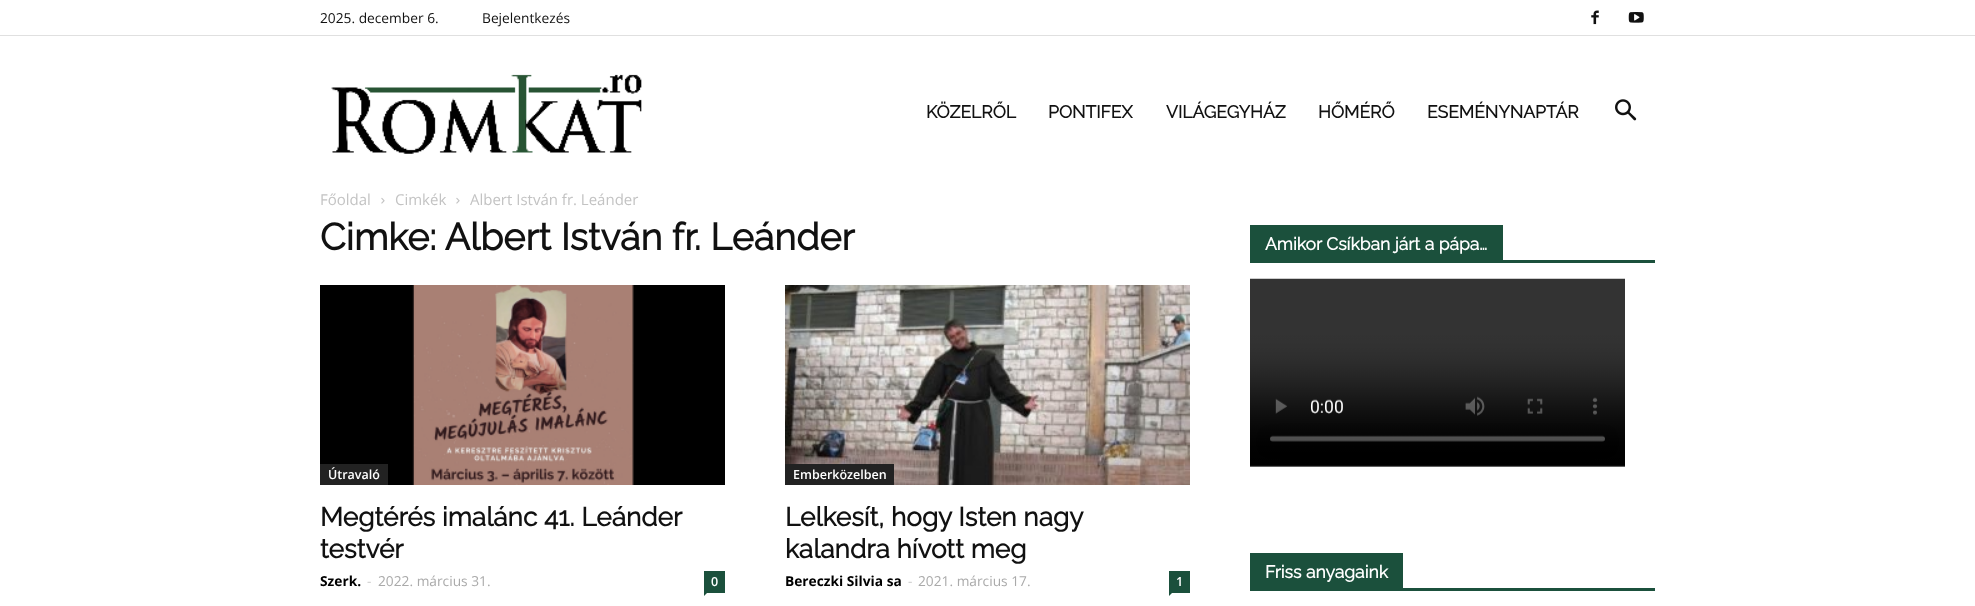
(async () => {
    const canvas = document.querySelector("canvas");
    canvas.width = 1975;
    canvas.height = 606;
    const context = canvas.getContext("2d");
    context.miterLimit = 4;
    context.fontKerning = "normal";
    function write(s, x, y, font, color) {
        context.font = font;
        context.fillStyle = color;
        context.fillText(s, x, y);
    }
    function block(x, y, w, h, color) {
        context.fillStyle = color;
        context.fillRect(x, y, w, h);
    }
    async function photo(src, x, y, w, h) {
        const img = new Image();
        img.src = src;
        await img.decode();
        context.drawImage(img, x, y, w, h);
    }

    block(0, 0, 1975, 606, "rgb(255, 255, 255)");
    block(0, 35, 1975, 1, "rgb(224, 224, 224)");
    write("2025. december 6.", 320, 23, "13.75px Open Sans", "rgb(17, 17, 17)");
    write("Bejelentkezés", 482, 23, "13.75px Open Sans", "rgb(17, 17, 17)");
    await photo("media/1.png", 1591, 10, 8, 15);
    await photo("media/2.png", 1628, 12, 16, 11);
    await photo("media/3.png", 331, 74, 311, 80);
    write("KÖZELRŐL", 926, 118, "bold 17.5px Raleway", "rgb(17, 17, 17)");
    write("PONTIFEX", 1048, 118, "bold 17.5px Raleway", "rgb(17, 17, 17)");
    write("VILÁGEGYHÁZ", 1166, 118, "bold 17.5px Raleway", "rgb(17, 17, 17)");
    write("HŐMÉRŐ", 1318, 118, "bold 17.5px Raleway", "rgb(17, 17, 17)");
    write("ESEMÉNYNAPTÁR", 1427, 118, "bold 17.5px Raleway", "rgb(17, 17, 17)");
    await photo("media/4.png", 1615, 99, 22, 22);
    write("Főoldal", 320, 205, "15px Open Sans", "rgb(195, 195, 195)");
    await photo("media/5.png", 381, 197, 4, 7);
    write("Cimkék", 395, 205, "15px Open Sans", "rgb(195, 195, 195)");
    await photo("media/5.png", 456, 197, 4, 7);
    write("Albert István fr. Leánder", 470, 205, "15px Open Sans", "rgb(195, 195, 195)");
    write("Cimke: Albert István fr. Leánder", 320, 250, "bold 37.5px Raleway", "rgb(17, 17, 17)");
    await photo("media/6.png", 320, 285, 405, 200);
    block(320, 464, 68, 21, "rgb(34, 34, 34)");
    write("Útravaló", 328, 479, "600 12.5px Open Sans", "rgb(255, 255, 255)");
    write("Megtérés imalánc 41. Leánder", 320, 526, "bold 26.25px Raleway", "rgb(17, 17, 17)");
    write("testvér", 320, 558, "bold 26.25px Raleway", "rgb(17, 17, 17)");
    write("Szerk.", 320, 586, "bold 13.75px Open Sans", "rgb(0, 0, 0)");
    write("-", 367, 586, "13.75px Open Sans", "rgb(204, 204, 204)");
    write("2022. március 31.", 378, 586, "13.75px Open Sans", "rgb(170, 170, 170)");
    block(704, 571, 21, 22, "rgb(27, 80, 60)");
    write("0", 711, 586, "600 12.5px Open Sans", "rgb(255, 255, 255)");
    context.fillStyle = "rgb(27, 80, 60)";
    context.beginPath();
    context.moveTo(704, 592.5);
    context.lineTo(707.5, 592.5);
    context.lineTo(704, 596);
    context.closePath();
    context.fill();
    await photo("media/7.png", 785, 285, 405, 200);
    block(785, 464, 109, 21, "rgb(34, 34, 34)");
    write("Emberközelben", 793, 479, "600 12.5px Open Sans", "rgb(255, 255, 255)");
    write("Lelkesít, hogy Isten nagy", 785, 526, "bold 26.25px Raleway", "rgb(17, 17, 17)");
    write("kalandra hívott meg", 785, 558, "bold 26.25px Raleway", "rgb(17, 17, 17)");
    write("Bereczki Silvia sa", 785, 586, "bold 13.75px Open Sans", "rgb(0, 0, 0)");
    write("-", 908, 586, "13.75px Open Sans", "rgb(204, 204, 204)");
    write("2021. március 17.", 918, 586, "13.75px Open Sans", "rgb(170, 170, 170)");
    block(1169, 571, 21, 22, "rgb(27, 80, 60)");
    write("1", 1176, 586, "600 12.5px Open Sans", "rgb(255, 255, 255)");
    context.fillStyle = "rgb(27, 80, 60)";
    context.beginPath();
    context.moveTo(1169, 592.5);
    context.lineTo(1172.5, 592.5);
    context.lineTo(1169, 596);
    context.closePath();
    context.fill();
    block(1250, 260, 405, 3, "rgb(27, 80, 60)");
    block(1250, 225, 253, 35, "rgb(27, 80, 60)");
    write("Amikor Csíkban járt a pápa…", 1265, 250, "bold 17.5px Raleway", "rgb(255, 255, 255)");
    await photo("media/8.png", 1250, 278, 375, 189);
    block(1250, 588, 405, 3, "rgb(27, 80, 60)");
    block(1250, 553, 153, 35, "rgb(27, 80, 60)");
    write("Friss anyagaink", 1265, 578, "bold 17.5px Raleway", "rgb(255, 255, 255)");
})();
